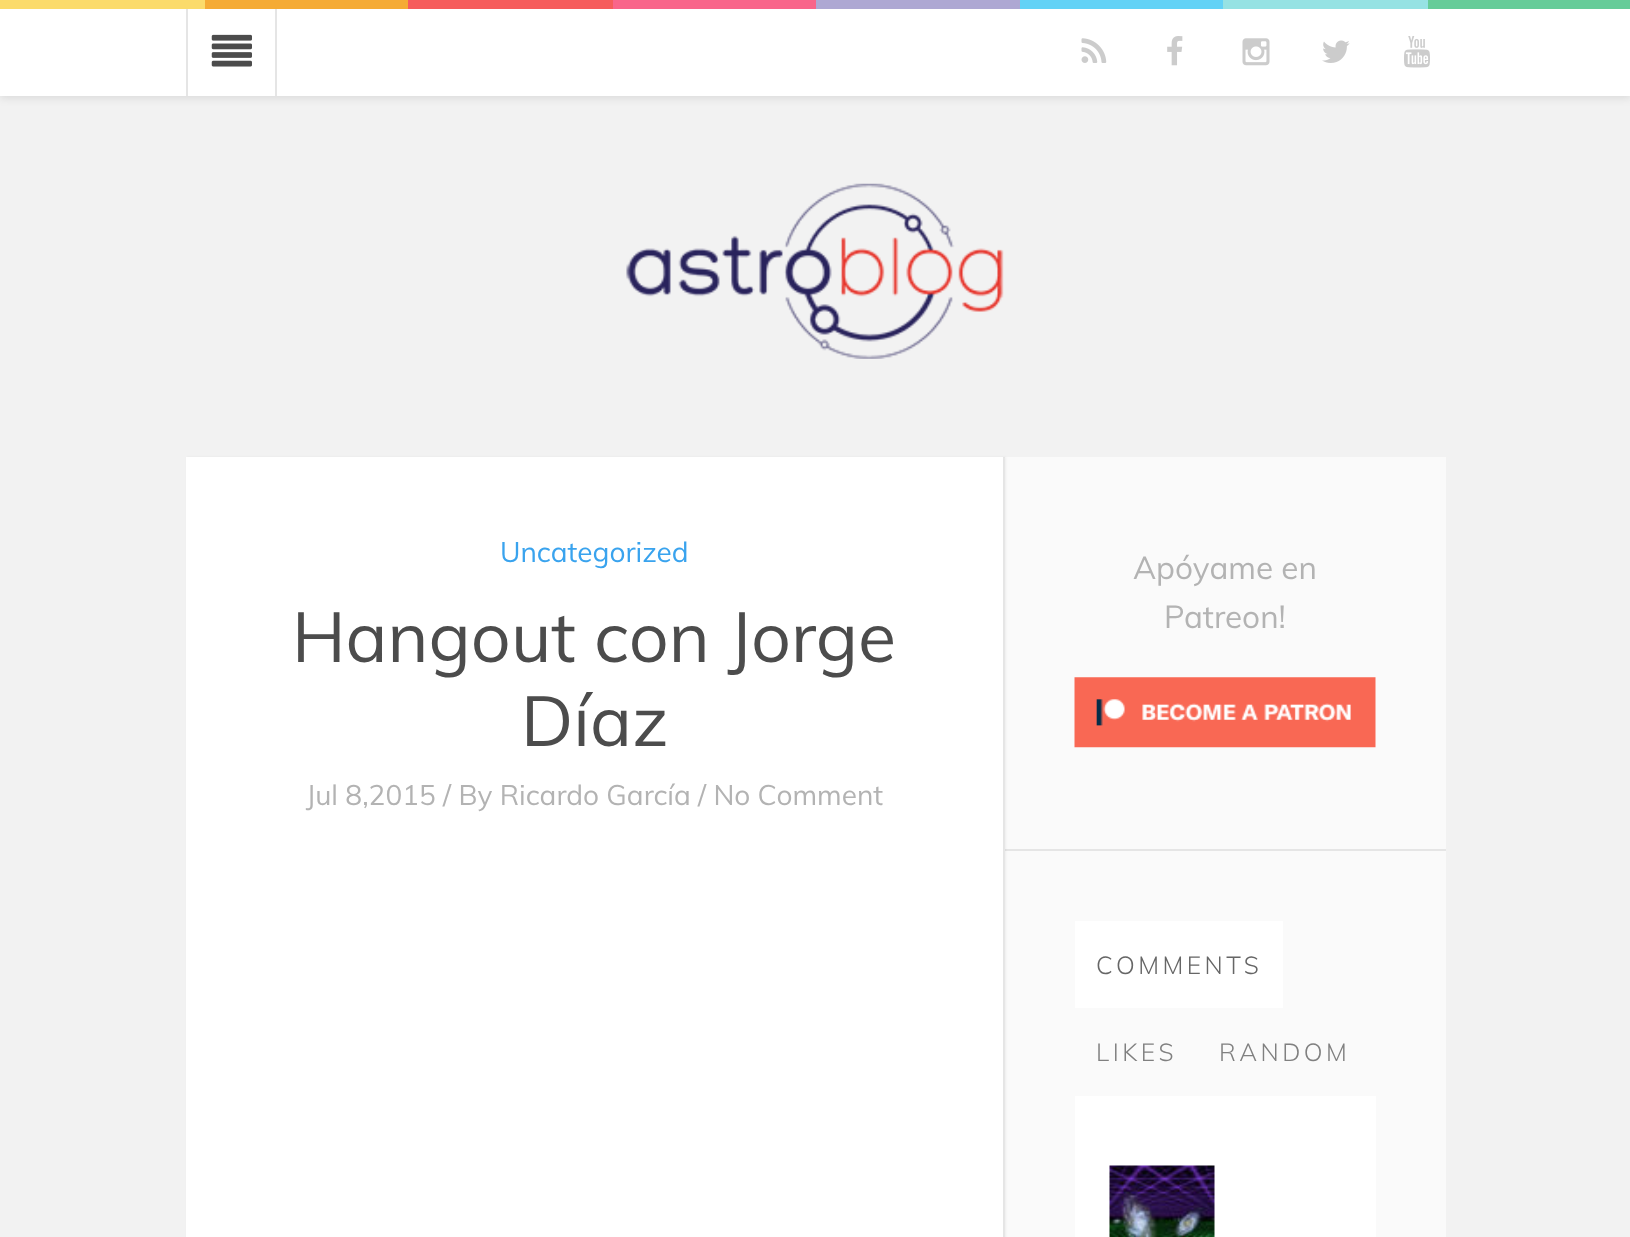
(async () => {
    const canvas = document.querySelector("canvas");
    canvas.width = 1630;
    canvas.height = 1237;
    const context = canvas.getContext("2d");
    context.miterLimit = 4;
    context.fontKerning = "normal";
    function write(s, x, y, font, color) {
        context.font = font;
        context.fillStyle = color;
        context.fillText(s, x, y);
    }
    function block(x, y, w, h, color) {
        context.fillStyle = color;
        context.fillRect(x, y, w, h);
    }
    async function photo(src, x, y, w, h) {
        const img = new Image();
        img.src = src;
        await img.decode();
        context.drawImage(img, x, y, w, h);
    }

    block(0, 0, 1630, 1237, "rgb(242, 242, 242)");
    context.fillStyle = "rgba(0, 0, 0, 0.1)";
    context.filter = "blur(4.5px)";
    context.beginPath();
    context.rect(0, 2, 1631, 96);
    context.fill();
    context.filter = "none";
    block(0, 9, 1630, 87, "rgb(255, 255, 255)");
    block(0, 0, 205, 9, "rgb(251, 219, 107)");
    block(205, 0, 203, 9, "rgb(245, 171, 53)");
    block(408, 0, 205, 9, "rgb(246, 92, 92)");
    block(613, 0, 203, 9, "rgb(249, 101, 138)");
    block(816, 0, 204, 9, "rgb(174, 168, 211)");
    block(1020, 0, 203, 9, "rgb(99, 210, 246)");
    block(1223, 0, 205, 9, "rgb(150, 226, 227)");
    block(1428, 0, 202, 9, "rgb(102, 204, 153)");
    block(275, 9, 2, 87, "rgb(229, 229, 229)");
    block(186, 9, 2, 87, "rgb(229, 229, 229)");
    await photo("media/1.png", 211, 34, 41, 33);
    await photo("media/2.png", 1081, 38, 26, 25);
    await photo("media/3.png", 1167, 36, 16, 30);
    await photo("media/4.png", 1242, 38, 28, 28);
    await photo("media/5.png", 1322, 40, 28, 23);
    await photo("media/6.png", 1404, 36, 26, 32);
    await photo("media/7.png", 626, 183, 378, 176);
    block(1005, 457, 441, 780, "rgb(250, 250, 250)");
    block(1005, 849, 441, 2, "rgb(229, 229, 229)");
    context.fillStyle = "rgba(0, 0, 0, 0.05)";
    context.filter = "blur(1px)";
    context.beginPath();
    context.rect(187, 457, 819, 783);
    context.fill();
    context.filter = "none";
    block(186, 457, 817, 780, "rgb(255, 255, 255)");
    block(1003, 457, 2, 1, "rgb(229, 229, 229)");
    write("Uncategorized", 500, 562, "28px Muli", "rgb(57, 163, 238)");
    write("Hangout con Jorge", 292, 662, "70px Muli", "rgb(76, 76, 76)");
    write("Díaz", 521, 746, "70px Muli", "rgb(76, 76, 76)");
    write("Jul 8,2015 / By Ricardo García / No Comment", 306, 805, "28px Muli", "rgb(179, 179, 179)");
    write("Apóyame en", 1133, 579, "31.5px Muli", "rgb(179, 179, 179)");
    write("Patreon!", 1164, 628, "31.5px Muli", "rgb(179, 179, 179)");
    await photo("media/8.png", 1074, 677, 302, 71);
    block(1075, 921, 208, 87, "rgb(255, 255, 255)");
    context.letterSpacing = "3.5px";
    write("COMMENTS", 1096, 974, "300 24.5px Muli", "rgb(102, 102, 102)");
    write("LIKES", 1096, 1061, "300 24.5px Muli", "rgb(128, 128, 128)");
    write("RANDOM", 1219, 1061, "300 24.5px Muli", "rgb(128, 128, 128)");
    block(1075, 1096, 301, 141, "rgb(255, 255, 255)");
    await photo("media/9.png", 1109, 1165, 106, 72);
})();
